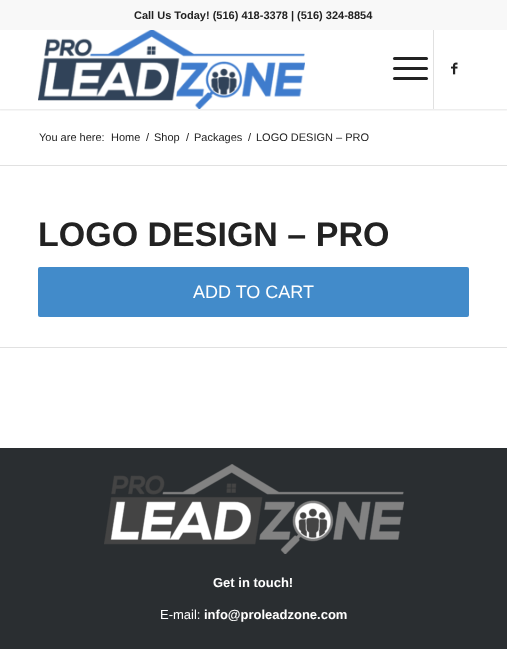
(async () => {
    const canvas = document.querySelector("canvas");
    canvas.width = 507;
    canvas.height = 649;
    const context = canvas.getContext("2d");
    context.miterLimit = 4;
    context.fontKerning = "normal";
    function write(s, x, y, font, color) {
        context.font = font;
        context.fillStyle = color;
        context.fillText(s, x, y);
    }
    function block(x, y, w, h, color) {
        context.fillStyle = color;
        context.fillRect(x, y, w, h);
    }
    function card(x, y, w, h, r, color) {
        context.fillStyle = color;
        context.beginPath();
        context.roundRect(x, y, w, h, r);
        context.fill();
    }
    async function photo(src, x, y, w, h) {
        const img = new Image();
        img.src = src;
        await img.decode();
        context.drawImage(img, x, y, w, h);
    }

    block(0, 0, 507, 649, "rgb(255, 255, 255)");
    context.save();
    context.beginPath();
    context.rect(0, 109, 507, 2);
    context.clip();
    context.fillStyle = "rgba(0, 0, 0, 0.1)";
    context.filter = "blur(1px)";
    context.beginPath();
    context.rect(-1, -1, 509, 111);
    context.fill();
    context.filter = "none";
    context.restore();
    block(433, 29, 1, 80, "rgb(225, 225, 225)");
    block(0, 0, 507, 30, "rgb(248, 248, 248)");
    write("Call Us Today! (516) 418-3378 | (516) 324-8854", 134, 19, "bold 11px Liberation Sans", "rgb(34, 34, 34)");
    await photo("media/1.png", 38, 30, 267, 79);
    card(393, 67, 35, 3, 1.5, "rgb(34, 34, 34)");
    card(393, 57, 35, 3, 1.5, "rgb(34, 34, 34)");
    card(393, 77, 35, 3, 1.5, "rgb(34, 34, 34)");
    await photo("media/2.png", 451, 62, 7, 13);
    write("You are here:", 39, 141, "11px Liberation Sans", "rgb(34, 34, 34)");
    write("Home", 111, 141, "11px Liberation Sans", "rgb(34, 34, 34)");
    write("/", 146, 141, "11px Liberation Sans", "rgb(34, 34, 34)");
    write("Shop", 154, 141, "11px Liberation Sans", "rgb(34, 34, 34)");
    write("/", 186, 141, "11px Liberation Sans", "rgb(34, 34, 34)");
    write("Packages", 194, 141, "11px Liberation Sans", "rgb(34, 34, 34)");
    write("/", 248, 141, "11px Liberation Sans", "rgb(34, 34, 34)");
    write("LOGO DESIGN – PRO", 256, 141, "11px Liberation Sans", "rgb(34, 34, 34)");
    block(0, 165, 507, 1, "rgb(225, 225, 225)");
    write("LOGO DESIGN – PRO", 38, 246, "bold 34px Liberation Sans", "rgb(34, 34, 34)");
    card(38, 267, 431, 50, 2, "rgb(66, 139, 202)");
    write("ADD TO CART", 193, 298, "18px Liberation Sans", "rgb(255, 255, 255)");
    block(0, 347, 507, 1, "rgb(225, 225, 225)");
    block(0, 448, 507, 201, "rgb(42, 46, 49)");
    await photo("media/3.png", 104, 464, 300, 90);
    write("Get in touch!", 213, 587, "bold 13px Liberation Sans", "rgb(255, 255, 255)");
    write("E-mail:", 160, 619, "13px Liberation Sans", "rgb(255, 255, 255)");
    write("info@proleadzone.com", 204, 619, "bold 13px Liberation Sans", "rgb(255, 255, 255)");
})();
